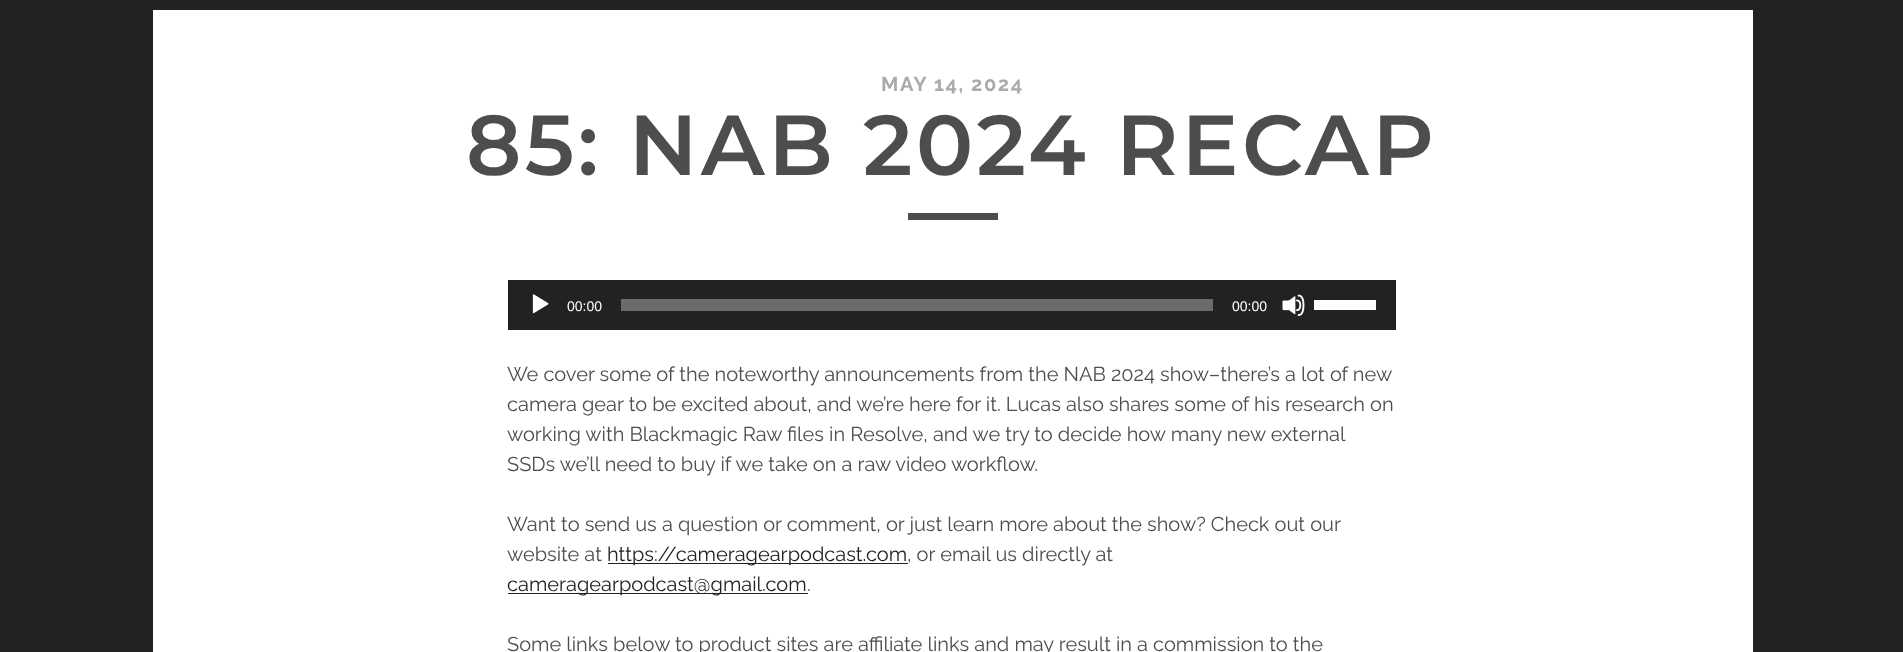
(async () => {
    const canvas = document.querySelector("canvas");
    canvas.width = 1903;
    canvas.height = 652;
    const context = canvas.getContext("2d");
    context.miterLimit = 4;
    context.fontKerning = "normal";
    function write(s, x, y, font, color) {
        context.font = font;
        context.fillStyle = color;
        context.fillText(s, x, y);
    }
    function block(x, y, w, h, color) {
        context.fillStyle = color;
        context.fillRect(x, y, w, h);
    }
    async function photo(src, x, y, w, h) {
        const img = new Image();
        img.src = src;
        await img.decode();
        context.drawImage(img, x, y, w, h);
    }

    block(0, 0, 1903, 652, "rgb(34, 34, 34)");
    block(153, 10, 1600, 642, "rgb(255, 255, 255)");
    context.letterSpacing = "1.6px";
    write("MAY 14, 2024", 881, 91, "bold 20px Raleway", "rgb(170, 170, 170)");
    context.letterSpacing = "3.4px";
    write("85: NAB 2024 RECAP", 466, 175, "100 85px Montserrat", "rgb(77, 77, 77)");
    block(908, 213, 90, 7, "rgb(77, 77, 77)");
    block(508, 280, 888, 50, "rgb(34, 34, 34)");
    await photo("media/1.png", 532, 294, 17, 20);
    context.letterSpacing = "0px";
    write("00:00", 567, 311, "14px Liberation Sans", "rgb(255, 255, 255)");
    block(621, 299, 592, 12, "rgb(107, 107, 107)");
    write("00:00", 1232, 311, "14px Liberation Sans", "rgb(255, 255, 255)");
    await photo("media/2.png", 1282, 294, 23, 22);
    block(1314, 300, 62, 10, "rgb(255, 255, 255)");
    write("We cover some of the noteworthy announcements from the NAB 2024 show–there’s a lot of new", 507, 381, "20px Raleway", "rgb(77, 77, 77)");
    write("camera gear to be excited about, and we’re here for it. Lucas also shares some of his research on", 507, 411, "20px Raleway", "rgb(77, 77, 77)");
    write("working with Blackmagic Raw files in Resolve, and we try to decide how many new external", 507, 441, "20px Raleway", "rgb(77, 77, 77)");
    write("SSDs we’ll need to buy if we take on a raw video workflow.", 507, 471, "20px Raleway", "rgb(77, 77, 77)");
    write("Want to send us a question or comment, or just learn more about the show? Check out our", 507, 531, "20px Raleway", "rgb(77, 77, 77)");
    write("website at", 507, 561, "20px Raleway", "rgb(77, 77, 77)");
    block(608, 563, 300, 1, "rgb(34, 34, 34)");
    write("https://cameragearpodcast.com", 607, 561, "20px Raleway", "rgb(34, 34, 34)");
    write(", or email us directly at", 907, 561, "20px Raleway", "rgb(77, 77, 77)");
    block(508, 593, 300, 1, "rgb(34, 34, 34)");
    write("cameragearpodcast@gmail.com", 507, 591, "20px Raleway", "rgb(34, 34, 34)");
    write(".", 807, 591, "20px Raleway", "rgb(77, 77, 77)");
    write("Some links below to product sites are affiliate links and may result in a commission to the", 507, 651, "20px Raleway", "rgb(77, 77, 77)");
})();
